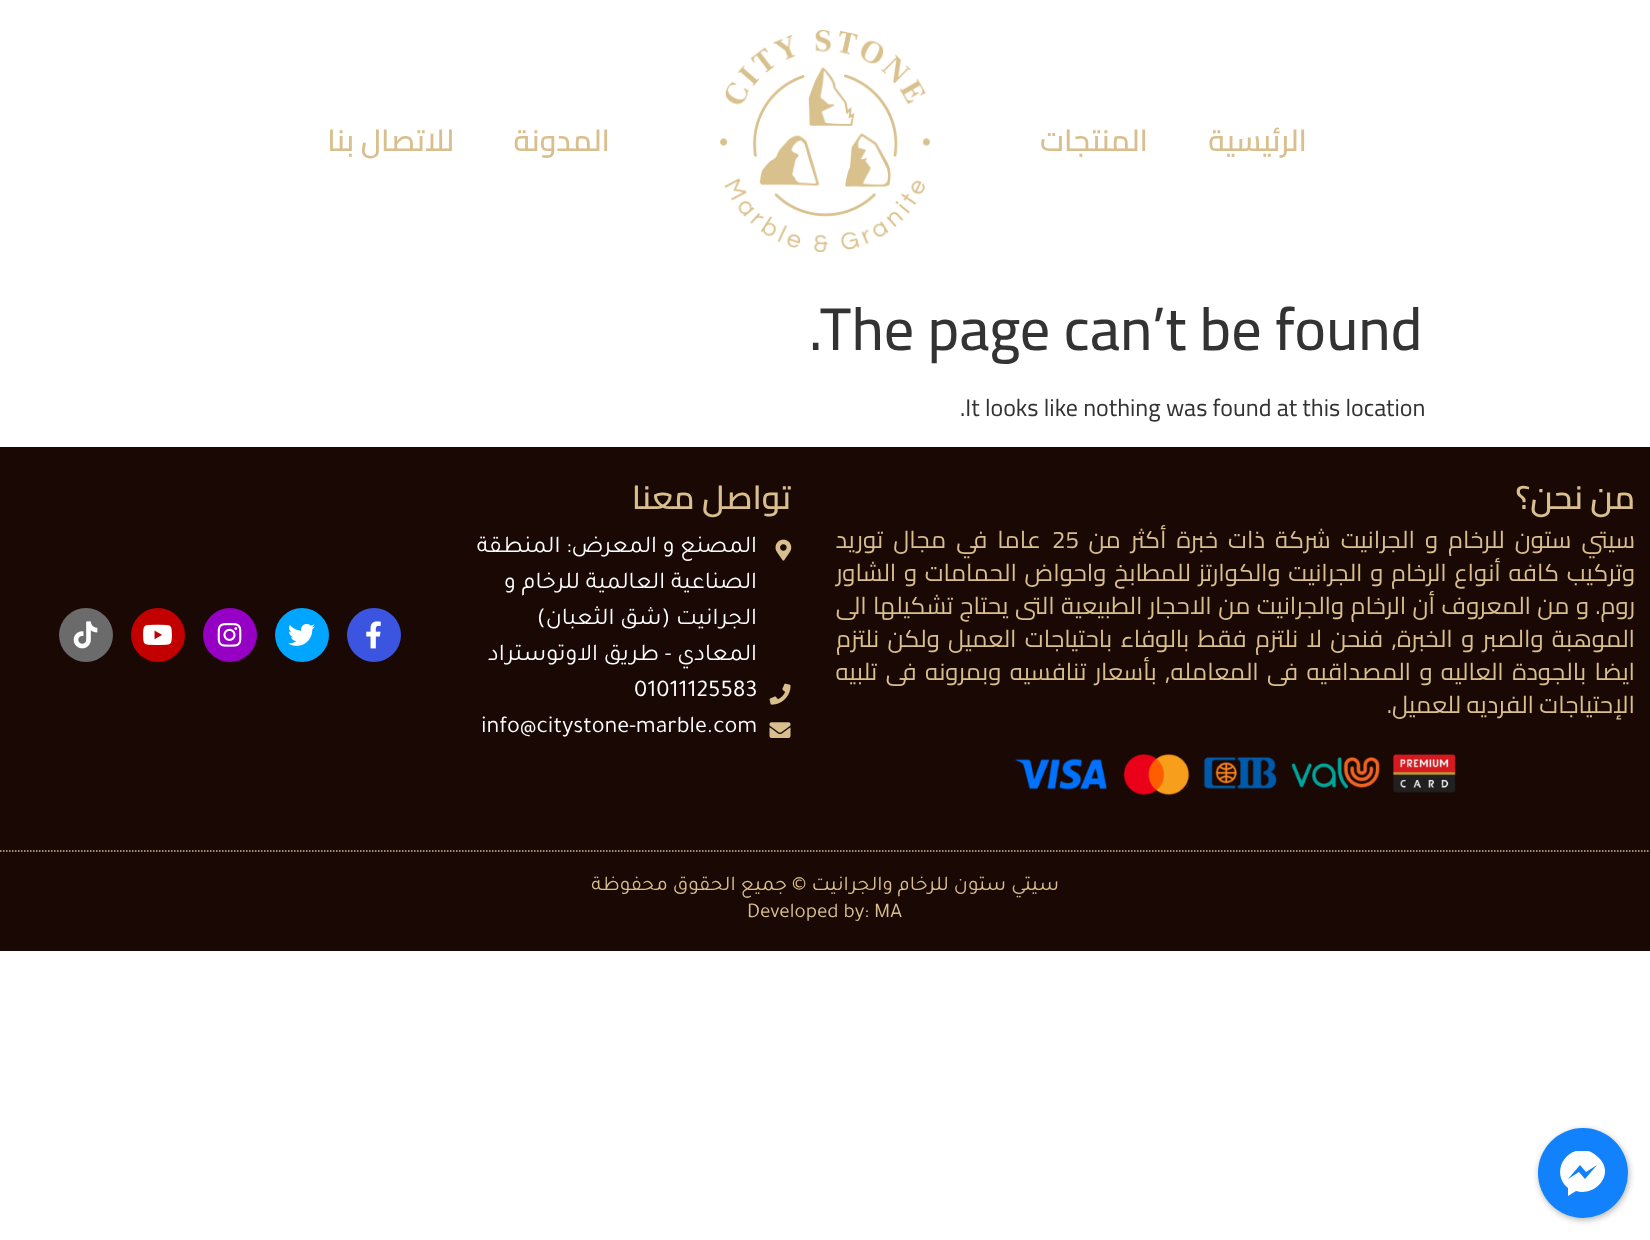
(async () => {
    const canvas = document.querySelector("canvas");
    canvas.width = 1650;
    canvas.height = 1240;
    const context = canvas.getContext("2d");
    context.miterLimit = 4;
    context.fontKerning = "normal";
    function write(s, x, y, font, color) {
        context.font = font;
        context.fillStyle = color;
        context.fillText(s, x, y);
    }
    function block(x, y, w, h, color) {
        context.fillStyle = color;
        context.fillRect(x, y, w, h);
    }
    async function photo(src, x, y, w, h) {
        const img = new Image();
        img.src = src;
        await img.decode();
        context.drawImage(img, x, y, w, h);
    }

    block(0, 0, 1650, 1240, "rgb(255, 255, 255)");
    context.direction = "rtl";
    write("الرئيسية", 1307, 151, "600 30px Cairo", "rgb(216, 191, 141)");
    write("المنتجات", 1148, 151, "600 30px Cairo", "rgb(216, 191, 141)");
    await photo("media/1.png", 720, 30, 210, 222);
    write("المدونة", 610, 151, "600 30px Cairo", "rgb(216, 191, 141)");
    write("للاتصال بنا", 454, 151, "600 30px Cairo", "rgb(216, 191, 141)");
    context.direction = "ltr";
    write(".The page can’t be found", 809, 350, "500 60px Cairo", "rgb(51, 51, 51)");
    write(".It looks like nothing was found at this location", 960, 416, "24px Cairo", "rgb(51, 51, 51)");
    block(0, 447, 1650, 504, "rgb(25, 8, 3)");
    context.beginPath();
    context.moveTo(0, 851);
    context.lineTo(1650, 851);
    context.strokeStyle = "rgb(216, 191, 141)";
    context.lineWidth = 1.5;
    context.setLineDash([1.5, 1.5]);
    context.stroke();
    context.direction = "rtl";
    write("من نحن؟", 1635, 509, "600 33px Cairo", "rgb(216, 191, 141)");
    context.wordSpacing = "4.75px";
    write("سيتي ستون للرخام و الجرانيت شركة ذات خبرة أكثر من", 1635, 548, "24px Cairo", "rgb(216, 191, 141)");
    context.wordSpacing = "0px";
    context.direction = "ltr";
    write("25", 1052, 548, "24px Cairo", "rgb(216, 191, 141)");
    context.wordSpacing = "4.75px";
    context.direction = "rtl";
    write("عاما في مجال توريد", 1041, 548, "24px Cairo", "rgb(216, 191, 141)");
    context.wordSpacing = "2.4px";
    write("وتركيب كافه أنواع الرخام و الجرانيت والكوارتز للمطابخ واحواض الحمامات و الشاور", 1635, 581, "24px Cairo", "rgb(216, 191, 141)");
    context.wordSpacing = "1.1px";
    write("روم. و من المعروف أن الرخام والجرانيت من الاحجار الطبيعية التى يحتاج تشكيلها الى", 1635, 614, "24px Cairo", "rgb(216, 191, 141)");
    context.wordSpacing = "3.1px";
    write("الموهبة والصبر و الخبرة, فنحن لا نلتزم فقط بالوفاء باحتياجات العميل ولكن نلتزم", 1635, 647, "24px Cairo", "rgb(216, 191, 141)");
    write("ايضا بالجودة العاليه و المصداقيه فى المعامله, بأسعار تنافسيه وبمرونه فى تلبيه", 1635, 680, "24px Cairo", "rgb(216, 191, 141)");
    context.wordSpacing = "0px";
    write("الإحتياجات الفرديه للعميل.", 1635, 713, "24px Cairo", "rgb(216, 191, 141)");
    await photo("media/2.png", 1015, 754, 441, 42);
    write("تواصل معنا", 791, 509, "600 33px Cairo", "rgb(216, 191, 141)");
    await photo("media/3.png", 775, 539, 17, 22);
    write("المصنع و المعرض: المنطقة", 757, 552, "24px Tajawal", "rgb(255, 255, 255)");
    write("الصناعية العالمية للرخام و", 757, 588, "24px Tajawal", "rgb(255, 255, 255)");
    write("الجرانيت (شق الثعبان)", 757, 624, "24px Tajawal", "rgb(255, 255, 255)");
    write("المعادي - طريق الاوتوستراد", 757, 660, "24px Tajawal", "rgb(255, 255, 255)");
    await photo("media/4.png", 769, 683, 22, 22);
    context.direction = "ltr";
    write("01011125583", 634, 696, "24px Tajawal", "rgb(255, 255, 255)");
    await photo("media/5.png", 769, 722, 22, 16);
    write("info@citystone-marble.com", 481, 732, "24px Tajawal", "rgb(255, 255, 255)");
    context.fillStyle = "rgb(60, 85, 224)";
    context.beginPath();
    context.arc(374, 635, 27, 0, Math.PI * 2);
    context.fill();
    await photo("media/6.png", 366, 621, 15, 28);
    context.fillStyle = "rgb(0, 165, 255)";
    context.beginPath();
    context.arc(302, 635, 27, 0, Math.PI * 2);
    context.fill();
    await photo("media/7.png", 288, 623, 27, 23);
    context.fillStyle = "rgb(150, 0, 197)";
    context.beginPath();
    context.arc(230, 635, 27, 0, Math.PI * 2);
    context.fill();
    await photo("media/8.png", 217, 623, 25, 24);
    context.fillStyle = "rgb(194, 0, 0)";
    context.beginPath();
    context.arc(158, 635, 27, 0, Math.PI * 2);
    context.fill();
    await photo("media/9.png", 143, 624, 29, 21);
    context.fillStyle = "rgb(107, 107, 107)";
    context.beginPath();
    context.arc(86, 635, 27, 0, Math.PI * 2);
    context.fill();
    await photo("media/10.png", 73, 621, 25, 28);
    context.direction = "rtl";
    write("سيتي ستون للرخام والجرانيت © جميع الحقوق محفوظة", 1059, 890, "21px Tajawal", "rgb(216, 191, 141)");
    context.direction = "ltr";
    write("Developed by: MA", 747, 917, "21px Tajawal", "rgb(216, 191, 141)");
    context.fillStyle = "rgba(0, 0, 0, 0.3)";
    context.filter = "blur(3px)";
    context.beginPath();
    context.roundRect(1539, 1130, 90, 90, 45);
    context.fill();
    context.filter = "none";
    context.fillStyle = "rgb(17, 130, 252)";
    context.beginPath();
    context.arc(1583, 1173, 45, 0, Math.PI * 2);
    context.fill();
    context.save();
    context.beginPath();
    context.rect(1560, 1151, 45, 45);
    context.clip();
    context.fillStyle = "rgb(255, 255, 255)";
    context.beginPath();
    context.moveTo(1583, 1150);
    context.bezierCurveTo(1562, 1150, 1552, 1175, 1568, 1188);
    context.lineTo(1568, 1196);
    context.lineTo(1576, 1191);
    context.bezierCurveTo(1596, 1197, 1616, 1173, 1598, 1157);
    context.bezierCurveTo(1594, 1153, 1588, 1150, 1583, 1150);
    context.closePath();
    context.moveTo(1585, 1179);
    context.lineTo(1579, 1172);
    context.lineTo(1568, 1179);
    context.lineTo(1580, 1165);
    context.lineTo(1586, 1172);
    context.lineTo(1597, 1165);
    context.closePath();
    context.fill();
    context.restore();
})();
